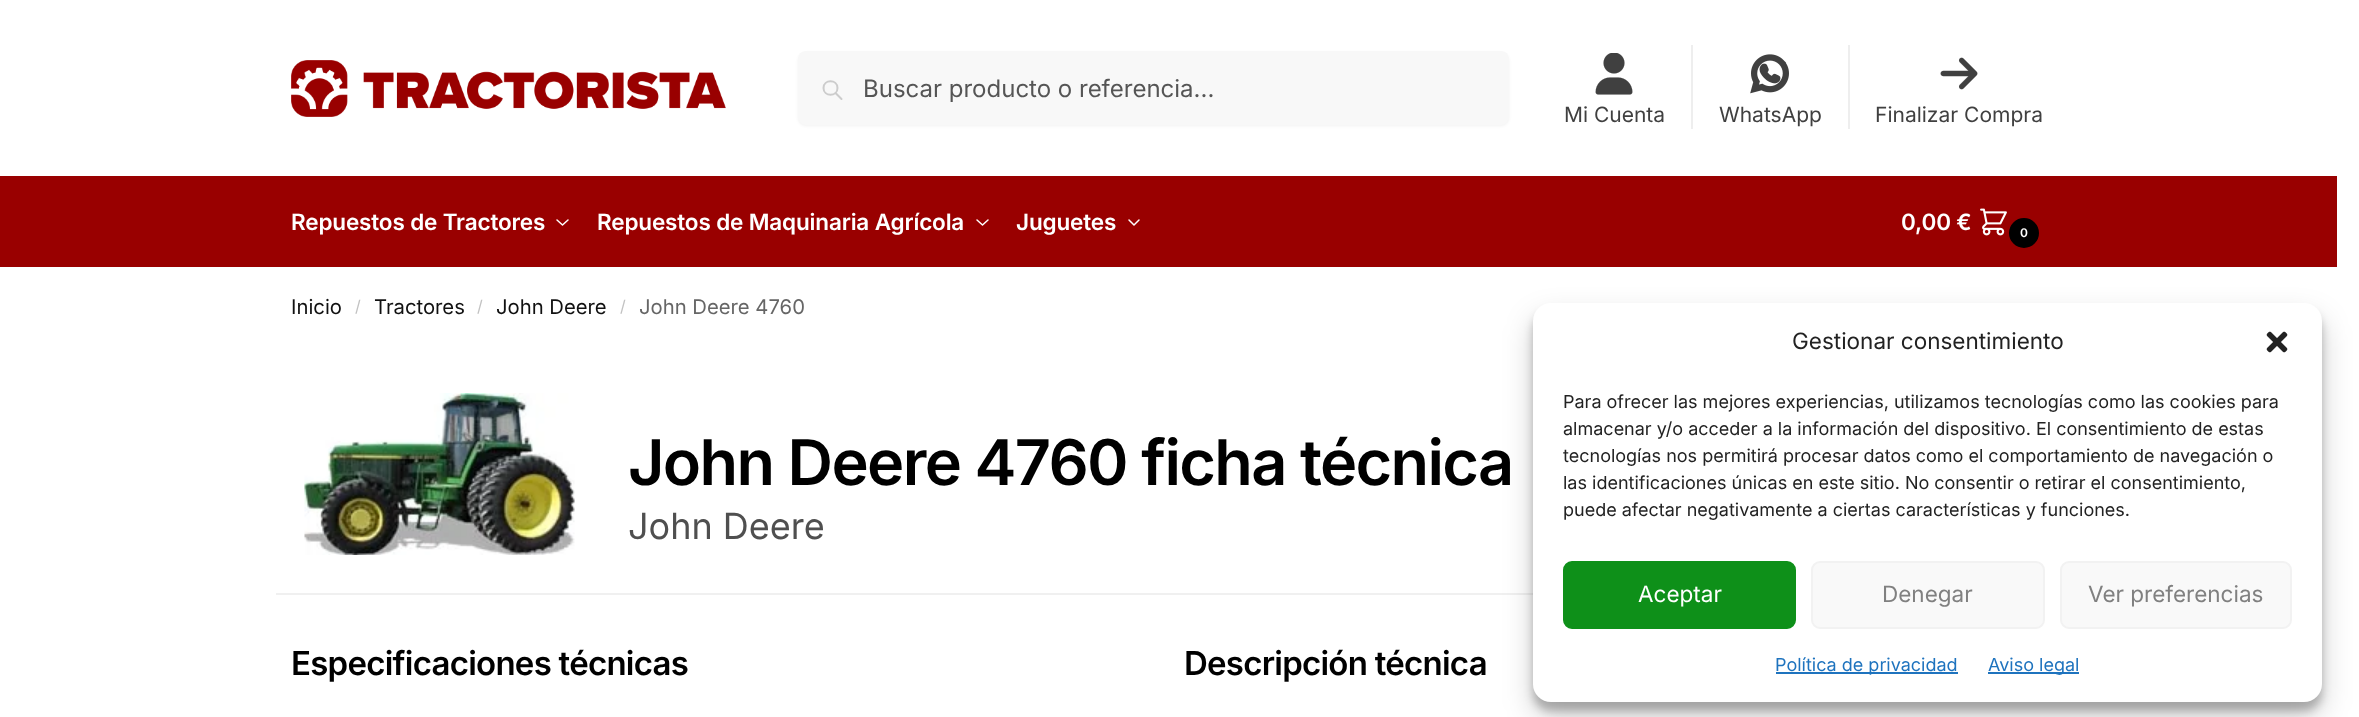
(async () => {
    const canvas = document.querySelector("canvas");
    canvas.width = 2359;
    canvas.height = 717;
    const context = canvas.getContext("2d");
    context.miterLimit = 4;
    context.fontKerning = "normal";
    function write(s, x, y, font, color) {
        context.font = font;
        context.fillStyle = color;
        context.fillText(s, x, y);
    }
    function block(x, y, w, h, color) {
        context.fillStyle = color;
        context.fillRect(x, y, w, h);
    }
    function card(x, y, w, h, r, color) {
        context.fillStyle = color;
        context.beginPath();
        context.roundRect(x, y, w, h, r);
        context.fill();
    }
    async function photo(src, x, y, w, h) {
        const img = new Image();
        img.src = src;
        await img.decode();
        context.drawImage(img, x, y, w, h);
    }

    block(0, 0, 2359, 717, "rgb(255, 255, 255)");
    await photo("media/1.png", 291, 60, 435, 57);
    context.fillStyle = "rgba(0, 0, 0, 0.05)";
    context.filter = "blur(1.5px)";
    context.beginPath();
    context.roundRect(798, 53, 711, 73, 8);
    context.fill();
    context.filter = "none";
    card(798, 51, 711, 74, 8, "rgb(248, 248, 248)");
    context.beginPath();
    context.moveTo(841.5, 99);
    context.lineTo(835.5, 93);
    context.moveTo(837.5, 88);
    context.bezierCurveTo(837.5, 97, 823.5, 97, 823.5, 88);
    context.bezierCurveTo(823.5, 79, 837.5, 79, 837.5, 88);
    context.closePath();
    context.strokeStyle = "rgb(204, 204, 204)";
    context.lineWidth = 2;
    context.lineCap = "round";
    context.lineJoin = "round";
    context.stroke();
    write("Buscar producto o referencia...", 863, 97, "24px Inter", "rgb(85, 85, 85)");
    await photo("media/2.png", 1595, 53, 38, 42);
    write("Mi Cuenta", 1564, 122, "21px Inter", "rgb(64, 64, 64)");
    block(1691, 45, 2, 84, "rgb(238, 238, 238)");
    await photo("media/3.png", 1750, 54, 39, 40);
    write("WhatsApp", 1719, 122, "21px Inter", "rgb(64, 64, 64)");
    block(1848, 45, 2, 84, "rgb(238, 238, 238)");
    await photo("media/4.png", 1940, 57, 38, 33);
    write("Finalizar Compra", 1875, 122, "21px Inter", "rgb(64, 64, 64)");
    block(0, 176, 2337, 91, "rgb(153, 0, 0)");
    context.letterSpacing = "-0.15px";
    write("Repuestos de Tractores", 291, 230, "600 22.5px Inter", "rgb(255, 255, 255)");
    context.beginPath();
    context.moveTo(568, 220);
    context.lineTo(562.5, 225);
    context.lineTo(557, 220);
    context.strokeStyle = "rgb(255, 255, 255)";
    context.lineWidth = 1.5;
    context.stroke();
    write("Repuestos de Maquinaria Agrícola", 597, 230, "600 22.5px Inter", "rgb(255, 255, 255)");
    context.beginPath();
    context.moveTo(988, 220);
    context.lineTo(982.5, 225);
    context.lineTo(977, 220);
    context.stroke();
    write("Juguetes", 1016, 230, "600 22.5px Inter", "rgb(255, 255, 255)");
    context.beginPath();
    context.moveTo(1139, 220);
    context.lineTo(1134, 225);
    context.lineTo(1129, 220);
    context.stroke();
    write("0,00 €", 1901, 230, "600 22.5px Inter", "rgb(255, 255, 255)");
    await photo("media/5.png", 1980, 208, 27, 28);
    context.fillStyle = "rgb(0, 0, 0)";
    context.beginPath();
    context.arc(2024, 233, 14, 0, Math.PI * 2);
    context.fill();
    context.strokeStyle = "rgb(0, 0, 0)";
    context.lineWidth = 2;
    context.stroke();
    write("0", 2020, 237, "600 12px Inter", "rgb(255, 255, 255)");
    context.letterSpacing = "0px";
    write("Inicio", 291, 314, "20.25px Inter", "rgb(17, 17, 17)");
    write("/", 355, 312, "16px Inter", "rgb(194, 194, 194)");
    write("Tractores", 374, 314, "20.25px Inter", "rgb(17, 17, 17)");
    write("/", 477, 312, "16px Inter", "rgb(194, 194, 194)");
    write("John Deere", 496, 314, "20.25px Inter", "rgb(17, 17, 17)");
    write("/", 620, 312, "16px Inter", "rgb(194, 194, 194)");
    write("John Deere 4760", 639, 314, "20.25px Inter", "rgb(102, 102, 102)");
    await photo("media/6.png", 304, 393, 271, 162);
    context.letterSpacing = "-1.65px";
    write("John Deere 4760 ficha técnica", 628, 485, "600 63px Inter", "rgb(0, 0, 0)");
    context.letterSpacing = "0px";
    write("John Deere", 628, 539, "36px Inter", "rgb(79, 79, 79)");
    block(276, 593, 1257, 2, "rgb(240, 240, 240)");
    context.letterSpacing = "-0.75px";
    write("Especificaciones técnicas", 291, 675, "600 33px Inter", "rgb(0, 0, 0)");
    write("Descripción técnica", 1184, 675, "600 33px Inter", "rgb(0, 0, 0)");
    context.fillStyle = "rgba(0, 0, 0, 0.23)";
    context.filter = "blur(4.5px)";
    context.beginPath();
    context.roundRect(1533, 312, 789, 399, 18);
    context.fill();
    context.filter = "none";
    context.fillStyle = "rgba(0, 0, 0, 0.19)";
    context.filter = "blur(15px)";
    context.beginPath();
    context.roundRect(1533, 318, 789, 399, 18);
    context.fill();
    context.filter = "none";
    card(1533, 303, 789, 399, 18, "rgb(255, 255, 255)");
    context.letterSpacing = "0px";
    write("Gestionar consentimiento", 1792, 349, "22.5px Inter", "rgb(34, 34, 34)");
    await photo("media/7.png", 2266, 331, 22, 22);
    write("Para ofrecer las mejores experiencias, utilizamos tecnologías como las cookies para", 1563, 408, "18px Inter", "rgb(34, 34, 34)");
    write("almacenar y/o acceder a la información del dispositivo. El consentimiento de estas", 1563, 435, "18px Inter", "rgb(34, 34, 34)");
    write("tecnologías nos permitirá procesar datos como el comportamiento de navegación o", 1563, 462, "18px Inter", "rgb(34, 34, 34)");
    write("las identificaciones únicas en este sitio. No consentir o retirar el consentimiento,", 1563, 489, "18px Inter", "rgb(34, 34, 34)");
    write("puede afectar negativamente a ciertas características y funciones.", 1563, 516, "18px Inter", "rgb(34, 34, 34)");
    context.fillStyle = "rgb(14, 144, 25)";
    context.beginPath();
    context.roundRect(1564, 562, 231, 66, 8);
    context.fill();
    context.strokeStyle = "rgb(14, 144, 25)";
    context.lineJoin = "miter";
    context.stroke();
    write("Aceptar", 1638, 602, "22.5px Inter", "rgb(255, 255, 255)");
    context.fillStyle = "rgb(249, 249, 249)";
    context.beginPath();
    context.roundRect(1812, 562, 232, 66, 8);
    context.fill();
    context.strokeStyle = "rgb(242, 242, 242)";
    context.stroke();
    write("Denegar", 1882, 602, "22.5px Inter", "rgb(128, 128, 128)");
    context.fillStyle = "rgb(249, 249, 249)";
    context.beginPath();
    context.roundRect(2061, 562, 230, 66, 8);
    context.fill();
    context.stroke();
    write("Ver preferencias", 2088, 602, "22.5px Inter", "rgb(128, 128, 128)");
    block(1776, 672, 182, 2, "rgb(30, 115, 190)");
    write("Política de privacidad", 1775, 671, "18px Inter", "rgb(30, 115, 190)");
    block(1988, 672, 91, 2, "rgb(30, 115, 190)");
    write("Aviso legal", 1988, 671, "18px Inter", "rgb(30, 115, 190)");
})();
